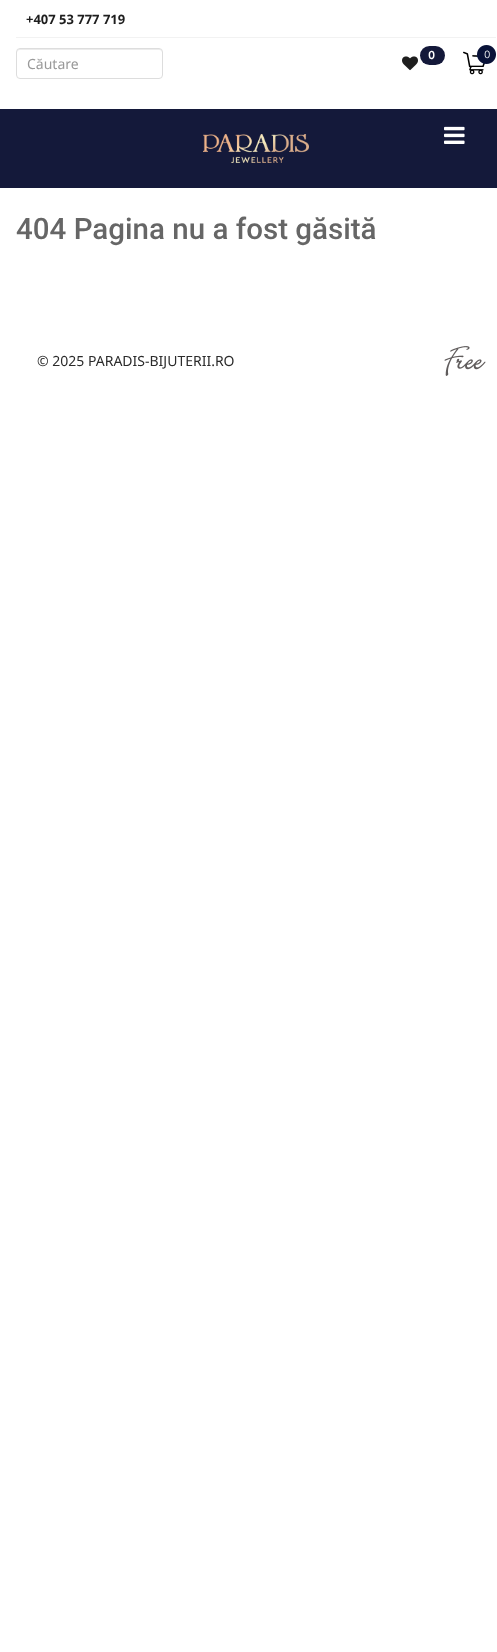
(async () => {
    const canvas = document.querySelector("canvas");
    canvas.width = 497;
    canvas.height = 1652;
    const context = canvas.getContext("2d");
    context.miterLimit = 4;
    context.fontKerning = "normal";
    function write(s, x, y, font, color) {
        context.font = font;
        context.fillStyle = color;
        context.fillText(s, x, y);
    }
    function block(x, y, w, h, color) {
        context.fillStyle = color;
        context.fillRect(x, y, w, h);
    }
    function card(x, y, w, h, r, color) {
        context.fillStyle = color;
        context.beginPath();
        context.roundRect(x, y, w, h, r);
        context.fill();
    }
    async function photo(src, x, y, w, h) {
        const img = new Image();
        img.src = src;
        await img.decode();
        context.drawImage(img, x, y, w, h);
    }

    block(0, 0, 497, 1652, "rgb(255, 255, 255)");
    block(16, 37, 480, 1, "rgb(242, 242, 242)");
    write("+407 53 777 719", 26, 24, "bold 13px Open Sans", "rgb(30, 30, 30)");
    card(420, 46, 25, 19, 9.5, "rgb(20, 25, 58)");
    write("0", 428, 59, "bold 11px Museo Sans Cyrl", "rgb(255, 255, 255)");
    await photo("media/1.png", 402, 56, 16, 15);
    await photo("media/2.png", 463, 45, 33, 30);
    write("0", 484, 58, "bold 10px 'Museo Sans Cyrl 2'", "rgb(255, 255, 255)");
    context.fillStyle = "rgb(236, 236, 236)";
    context.beginPath();
    context.moveTo(20, 50);
    context.lineTo(159, 50);
    context.bezierCurveTo(161, 50, 162, 51, 162, 53);
    context.lineTo(162, 52);
    context.bezierCurveTo(162, 50, 161, 49, 159, 49);
    context.lineTo(20, 49);
    context.bezierCurveTo(18, 49, 17, 50, 17, 52);
    context.lineTo(17, 53);
    context.bezierCurveTo(17, 51, 18, 50, 20, 50);
    context.closePath();
    context.fill();
    context.beginPath();
    context.roundRect(16.5, 48.5, 146, 30, 3.5);
    context.strokeStyle = "rgb(221, 221, 221)";
    context.stroke();
    write("Căutare", 27, 69, "14px Noto Sans", "rgb(153, 153, 153)");
    block(0, 109, 497, 79, "rgb(20, 25, 58)");
    await photo("media/3.png", 203, 134, 106, 29);
    await photo("media/4.png", 444, 126, 21, 18);
    write("404 Pagina nu a fost găsită", 16, 239, "500 29.5px Roboto", "rgb(102, 102, 102)");
    write("© 2025 PARADIS-BIJUTERII.RO", 37, 366, "14px Noto Sans", "rgb(43, 43, 43)");
    await photo("media/5.png", 444, 346, 42, 30);
})();
